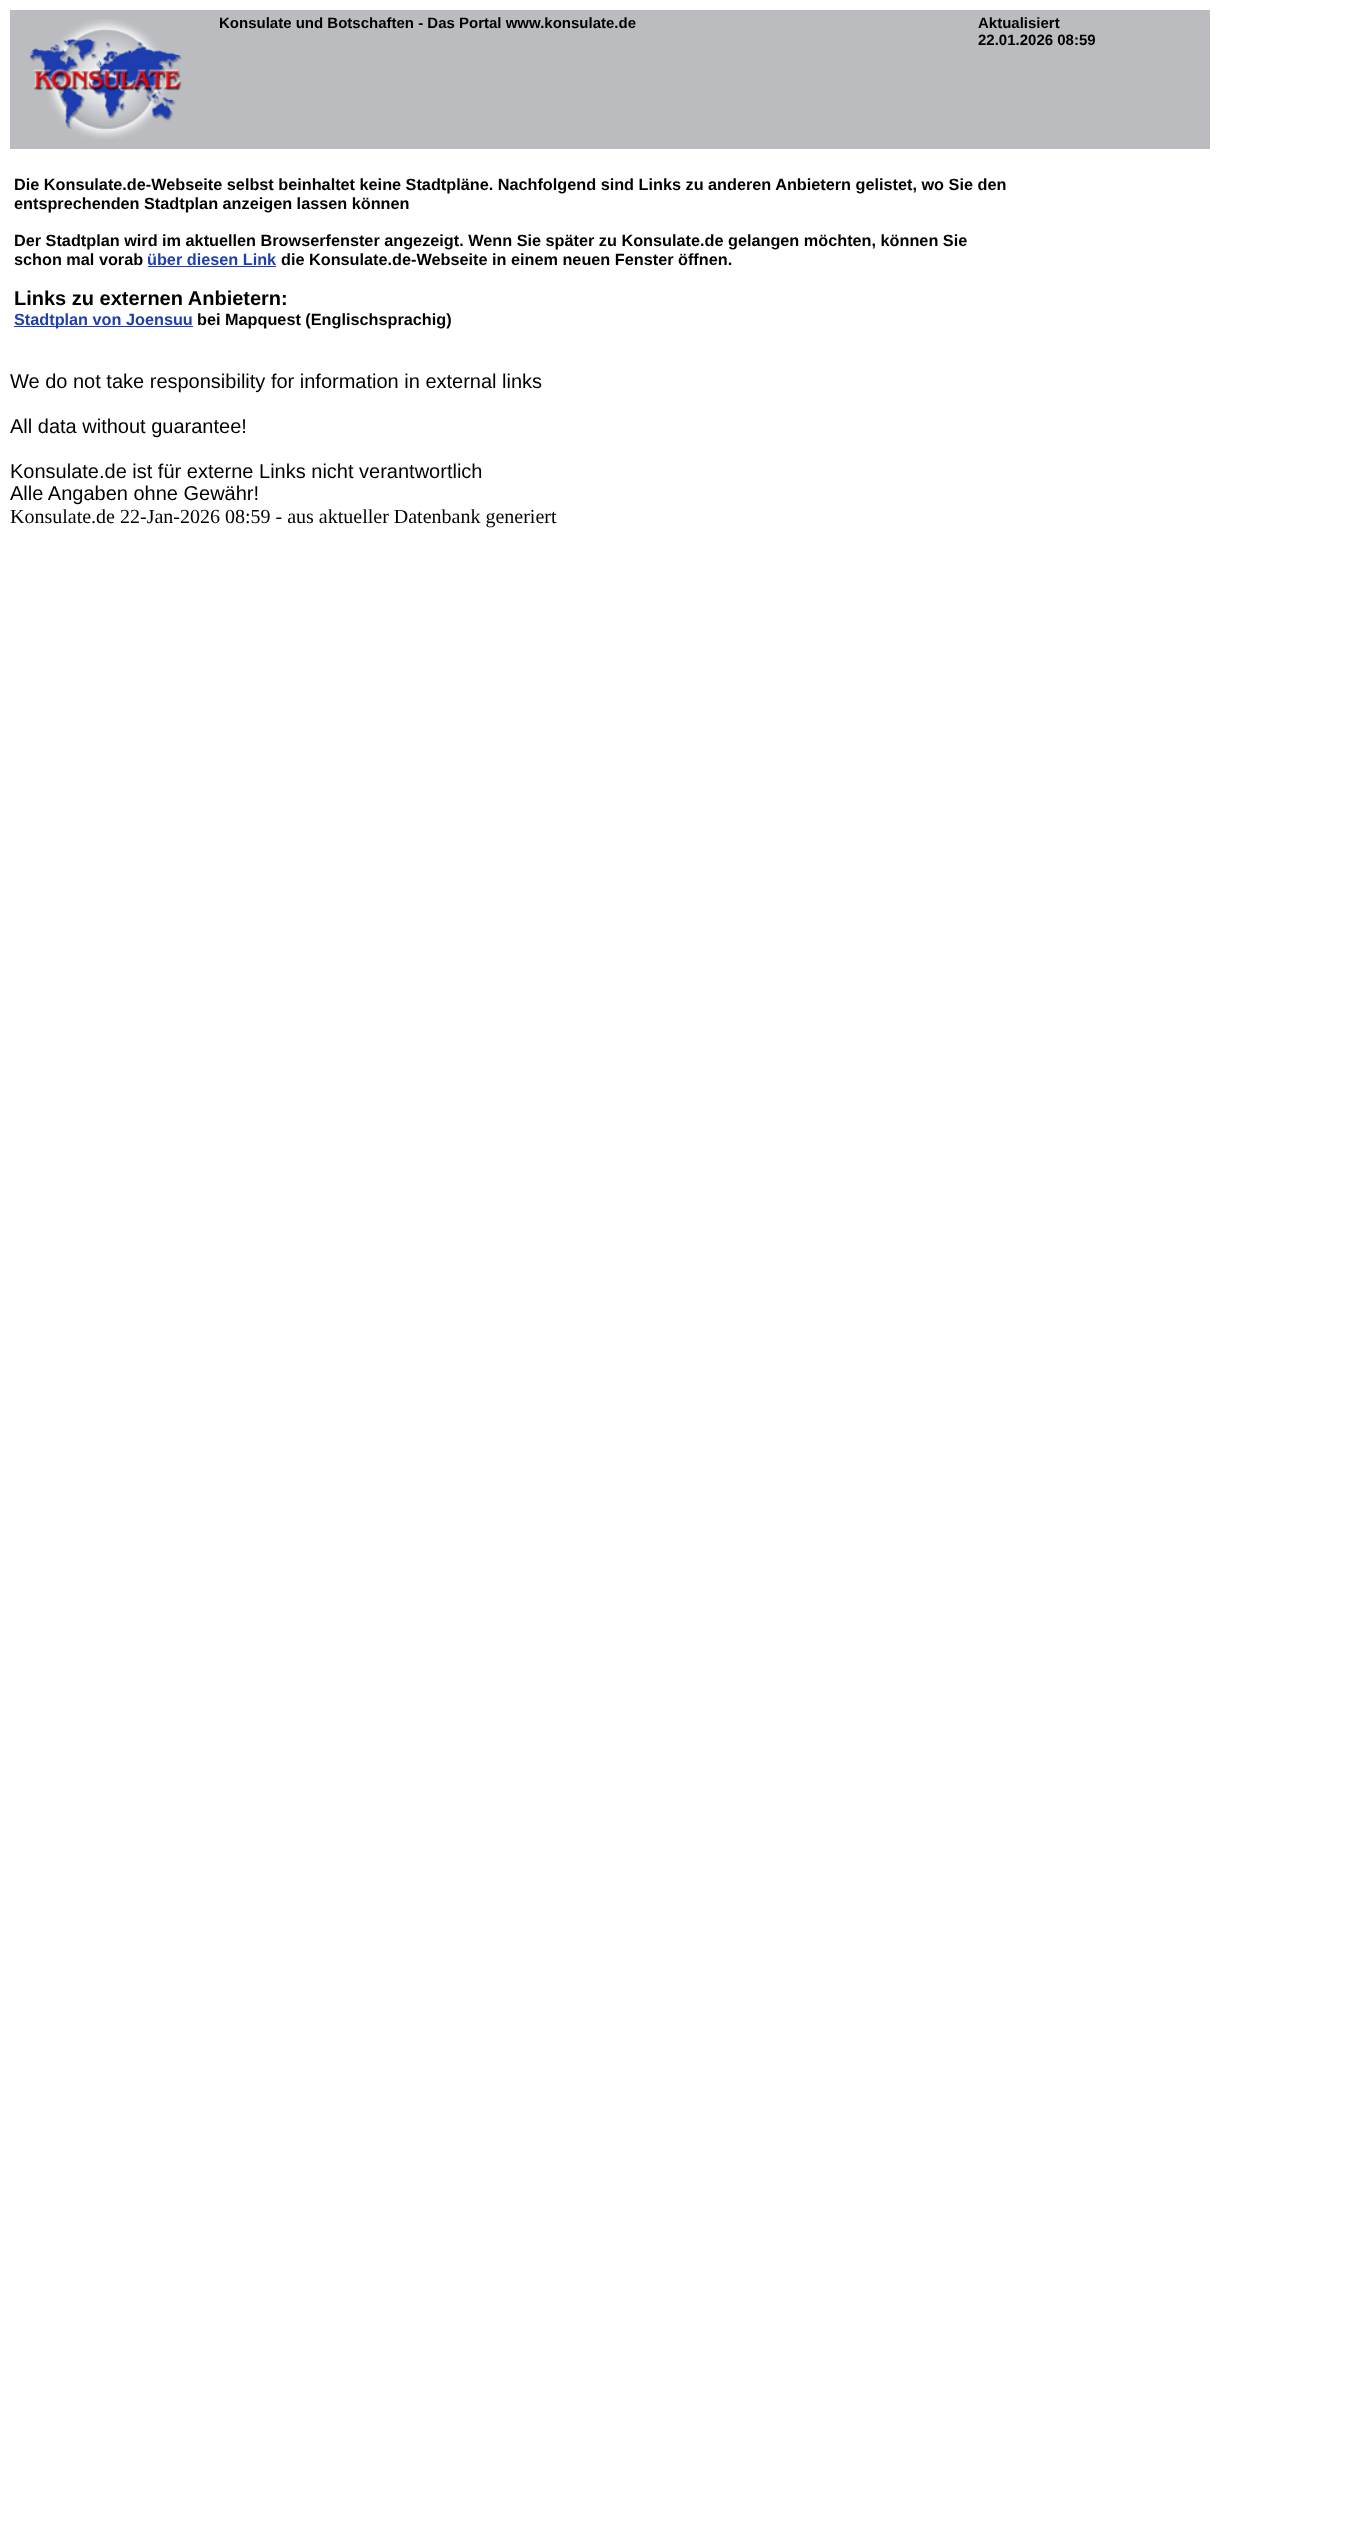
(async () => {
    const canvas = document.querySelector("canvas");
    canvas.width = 1370;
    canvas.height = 2524;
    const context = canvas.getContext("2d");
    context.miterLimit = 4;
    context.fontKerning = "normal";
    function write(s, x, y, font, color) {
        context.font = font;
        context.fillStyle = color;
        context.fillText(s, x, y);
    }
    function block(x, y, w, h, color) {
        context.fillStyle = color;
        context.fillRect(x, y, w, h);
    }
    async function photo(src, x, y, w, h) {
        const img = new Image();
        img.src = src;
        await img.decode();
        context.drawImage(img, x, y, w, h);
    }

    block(0, 0, 1370, 2524, "rgb(255, 255, 255)");
    block(10, 10, 1200, 139, "rgb(187, 188, 192)");
    await photo("media/1.png", 29, 19, 153, 120);
    write("Konsulate und Botschaften - Das Portal www.konsulate.de", 219, 28, "bold 15px Liberation Sans", "rgb(0, 0, 0)");
    write("Aktualisiert", 978, 28, "bold 15px Liberation Sans", "rgb(0, 0, 0)");
    write("22.01.2026 08:59", 978, 45, "bold 15px Liberation Sans", "rgb(0, 0, 0)");
    write("Die Konsulate.de-Webseite selbst beinhaltet keine Stadtpläne. Nachfolgend sind Links zu anderen Anbietern gelistet, wo Sie den", 14, 190, "bold 16.25px Liberation Sans", "rgb(0, 0, 0)");
    write("entsprechenden Stadtplan anzeigen lassen können", 14, 209, "bold 16.25px Liberation Sans", "rgb(0, 0, 0)");
    write("Der Stadtplan wird im aktuellen Browserfenster angezeigt. Wenn Sie später zu Konsulate.de gelangen möchten, können Sie", 14, 246, "bold 16.25px Liberation Sans", "rgb(0, 0, 0)");
    write("schon mal vorab", 14, 265, "bold 16.25px Liberation Sans", "rgb(0, 0, 0)");
    write("über diesen Link", 147, 265, "bold 16.25px Liberation Sans", "rgb(30, 62, 175)");
    block(148, 266, 128, 1, "rgb(30, 62, 175)");
    write("die Konsulate.de-Webseite in einem neuen Fenster öffnen.", 281, 265, "bold 16.25px Liberation Sans", "rgb(0, 0, 0)");
    write("Links zu externen Anbietern:", 14, 305, "bold 20px Liberation Sans", "rgb(0, 0, 0)");
    block(14, 326, 179, 1, "rgb(30, 62, 175)");
    write("Stadtplan von Joensuu", 14, 325, "bold 16.25px Liberation Sans", "rgb(30, 62, 175)");
    write("bei Mapquest (Englischsprachig)", 197, 325, "bold 16.25px Liberation Sans", "rgb(0, 0, 0)");
    write("We do not take responsibility for information in external links", 10, 388, "20px Liberation Sans", "rgb(0, 0, 0)");
    write("All data without guarantee!", 10, 433, "20px Liberation Sans", "rgb(0, 0, 0)");
    write("Konsulate.de ist für externe Links nicht verantwortlich", 10, 478, "20px Liberation Sans", "rgb(0, 0, 0)");
    write("Alle Angaben ohne Gewähr!", 10, 500, "20px Liberation Sans", "rgb(0, 0, 0)");
    write("Konsulate.de 22-Jan-2026 08:59 - aus aktueller Datenbank generiert", 10, 523, "20px Liberation Serif", "rgb(0, 0, 0)");
})();
